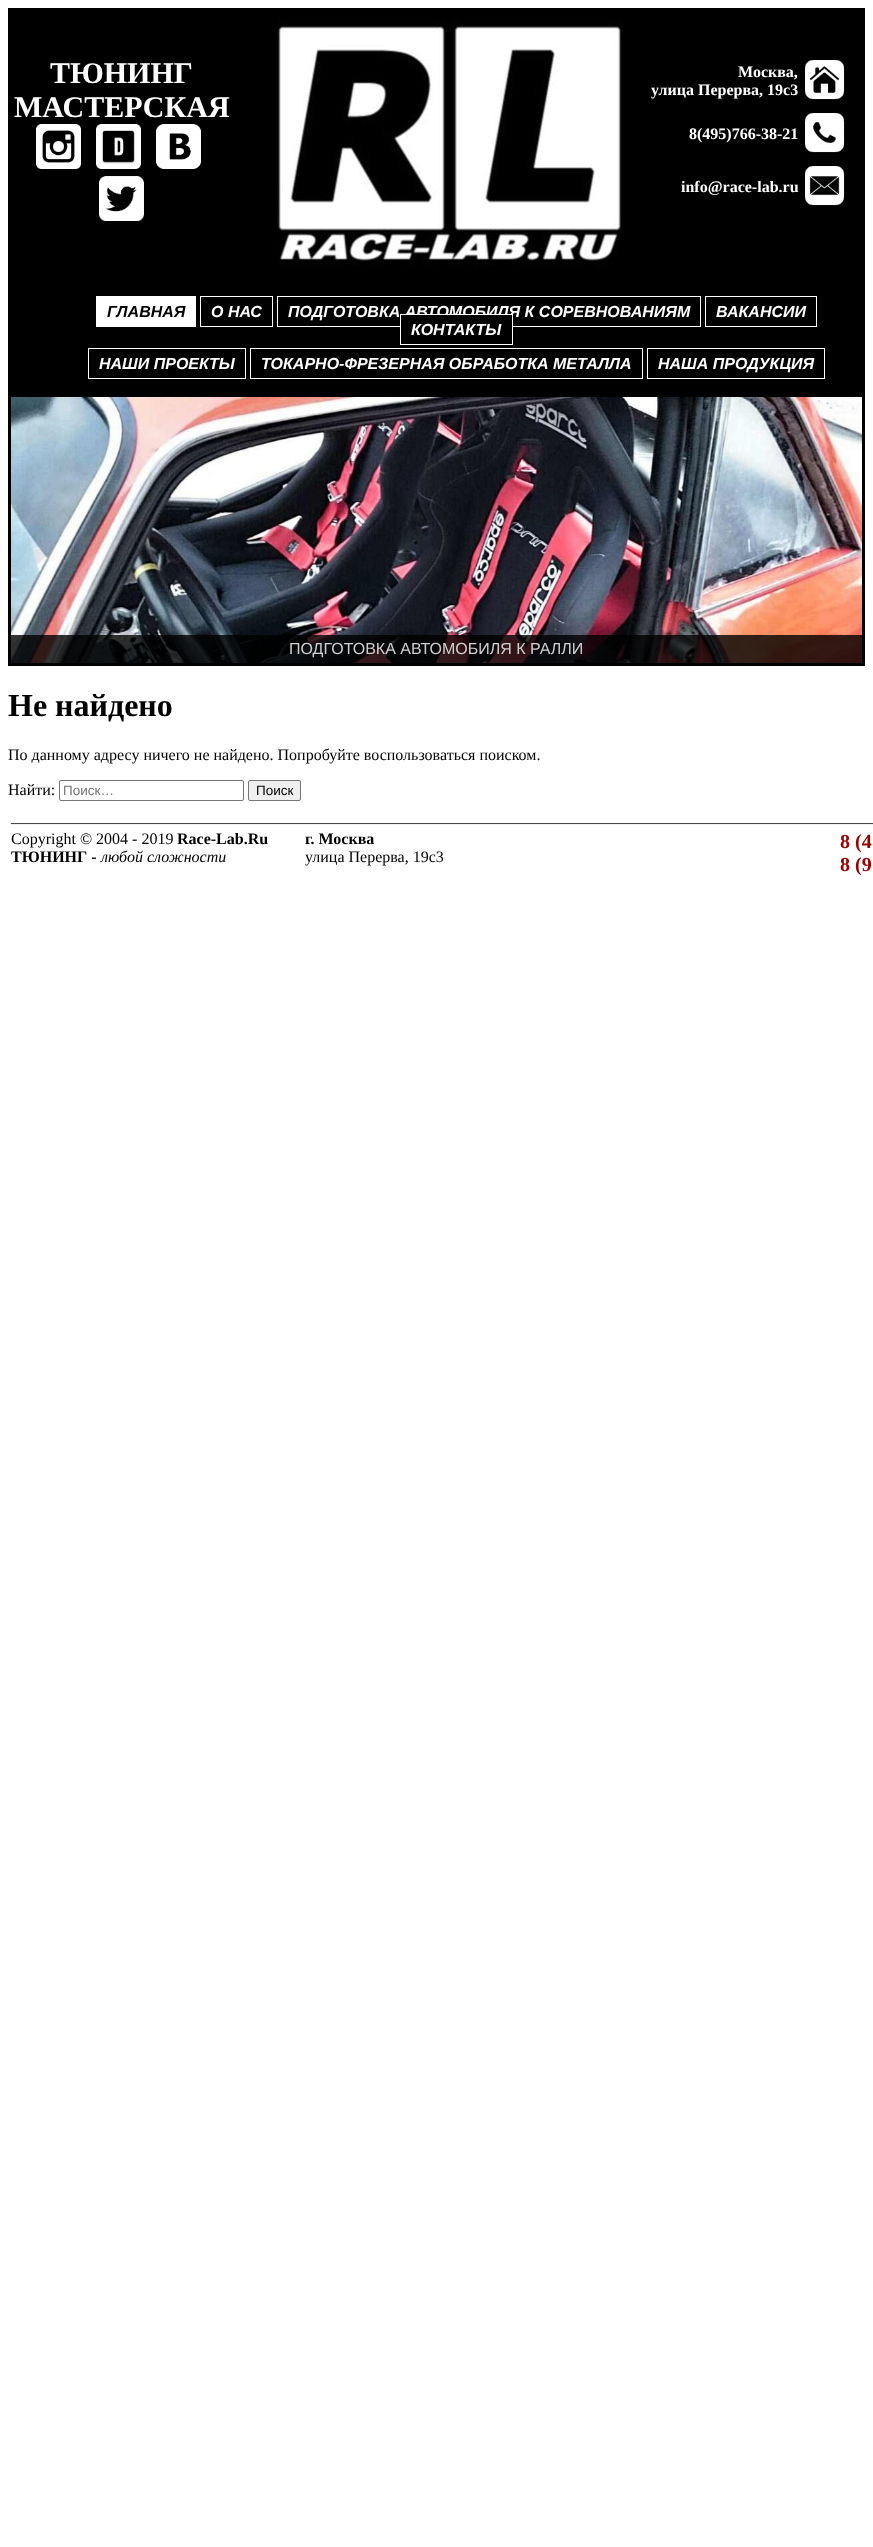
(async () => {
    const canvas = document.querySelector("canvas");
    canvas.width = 873;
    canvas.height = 2547;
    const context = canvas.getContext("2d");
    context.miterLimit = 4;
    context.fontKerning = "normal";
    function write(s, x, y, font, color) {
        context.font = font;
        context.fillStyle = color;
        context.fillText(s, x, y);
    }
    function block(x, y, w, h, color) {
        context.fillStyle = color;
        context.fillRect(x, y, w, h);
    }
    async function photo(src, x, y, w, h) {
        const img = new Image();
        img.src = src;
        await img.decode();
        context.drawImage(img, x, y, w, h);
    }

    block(0, 0, 873, 2547, "rgb(255, 255, 255)");
    block(8, 8, 857, 658, "rgb(0, 0, 0)");
    write("ТЮНИНГ", 50, 83, "bold 30px Liberation Serif", "rgb(255, 255, 255)");
    write("МАСТЕРСКАЯ", 14, 117, "bold 30px Liberation Serif", "rgb(255, 255, 255)");
    await photo("media/1.png", 36, 124, 45, 45);
    await photo("media/2.png", 96, 124, 45, 45);
    await photo("media/3.png", 156, 124, 45, 45);
    await photo("media/4.png", 99, 176, 45, 45);
    await photo("media/5.png", 277, 19, 345, 248);
    write("Москва,", 738, 77, "bold 16px Liberation Serif", "rgb(255, 255, 255)");
    write("улица Перерва, 19с3", 651, 95, "bold 16px Liberation Serif", "rgb(255, 255, 255)");
    await photo("media/6.png", 805, 60, 40, 40);
    write("8(495)766-38-21", 689, 139, "bold 16px Liberation Serif", "rgb(255, 255, 255)");
    await photo("media/7.png", 805, 113, 40, 40);
    write("info@race-lab.ru", 681, 192, "bold 16px Liberation Serif", "rgb(255, 255, 255)");
    await photo("media/8.png", 805, 166, 40, 40);
    block(96, 296, 100, 31, "rgb(255, 255, 255)");
    write("ГЛАВНАЯ", 107, 317, "italic bold 16px Liberation Sans", "rgb(0, 0, 0)");
    context.strokeStyle = "rgb(255, 255, 255)";
    context.strokeRect(200.5, 296.5, 72, 30);
    write("О НАС", 211, 317, "italic bold 16px Liberation Sans", "rgb(255, 255, 255)");
    context.strokeRect(277.5, 296.5, 423, 30);
    write("ПОДГОТОВКА АВТОМОБИЛЯ К СОРЕВНОВАНИЯМ", 288, 317, "italic bold 16px Liberation Sans", "rgb(255, 255, 255)");
    context.strokeRect(705.5, 296.5, 111, 30);
    write("ВАКАНСИИ", 716, 317, "italic bold 16px Liberation Sans", "rgb(255, 255, 255)");
    block(401, 315, 111, 12, "rgb(0, 0, 0)");
    context.strokeRect(400.5, 314.5, 112, 30);
    write("КОНТАКТЫ", 411, 335, "italic bold 16px Liberation Sans", "rgb(255, 255, 255)");
    context.strokeRect(88.5, 348.5, 157, 30);
    write("НАШИ ПРОЕКТЫ", 99, 369, "italic bold 16px Liberation Sans", "rgb(255, 255, 255)");
    context.strokeRect(250.5, 348.5, 392, 30);
    write("ТОКАРНО-ФРЕЗЕРНАЯ ОБРАБОТКА МЕТАЛЛА", 261, 369, "italic bold 16px Liberation Sans", "rgb(255, 255, 255)");
    context.strokeRect(647.5, 348.5, 177, 30);
    write("НАША ПРОДУКЦИЯ", 658, 369, "italic bold 16px Liberation Sans", "rgb(255, 255, 255)");
    await photo("media/9.png", 11, 397, 851, 266);
    block(11, 635, 851, 28, "rgba(0, 0, 0, 0.8)");
    write("ПОДГОТОВКА АВТОМОБИЛЯ К РАЛЛИ", 289, 654, "16px Liberation Sans", "rgb(207, 206, 207)");
    write("Не найдено", 8, 716, "bold 32px Liberation Serif", "rgb(0, 0, 0)");
    write("По данному адресу ничего не найдено. Попробуйте воспользоваться поиском.", 8, 760, "16px Liberation Serif", "rgb(0, 0, 0)");
    write("Найти:", 8, 795, "16px Liberation Serif", "rgb(0, 0, 0)");
    context.beginPath();
    context.roundRect(59.5, 780.5, 184, 20, 1.5);
    context.strokeStyle = "rgb(118, 118, 118)";
    context.stroke();
    write("Поиск…", 63, 795, "13.5px Liberation Sans", "rgb(117, 117, 117)");
    context.fillStyle = "rgb(239, 239, 239)";
    context.beginPath();
    context.roundRect(248.5, 780.5, 52, 20, 1.5);
    context.fill();
    context.stroke();
    write("Поиск", 256, 795, "13.5px Liberation Sans", "rgb(0, 0, 0)");
    write("____________________________________________________________________________________________________________", 11, 822, "16px Liberation Serif", "rgb(0, 0, 0)");
    write("Copyright © 2004 - 2019", 11, 844, "16px Liberation Serif", "rgb(0, 0, 0)");
    write("Race-Lab.Ru", 177, 844, "bold 16px Liberation Serif", "rgb(0, 0, 0)");
    write("ТЮНИНГ -", 11, 862, "bold 16px Liberation Serif", "rgb(0, 0, 0)");
    write("любой сложности", 101, 862, "italic 16px Liberation Serif", "rgb(0, 0, 0)");
    write("г. Москва", 305, 844, "bold 16px Liberation Serif", "rgb(0, 0, 0)");
    write("улица Перерва, 19с3", 305, 862, "16px Liberation Serif", "rgb(0, 0, 0)");
    write("8 (4", 840, 848, "bold 20px Liberation Serif", "rgb(153, 0, 0)");
    write("8 (9", 840, 871, "bold 20px Liberation Serif", "rgb(153, 0, 0)");
})();
